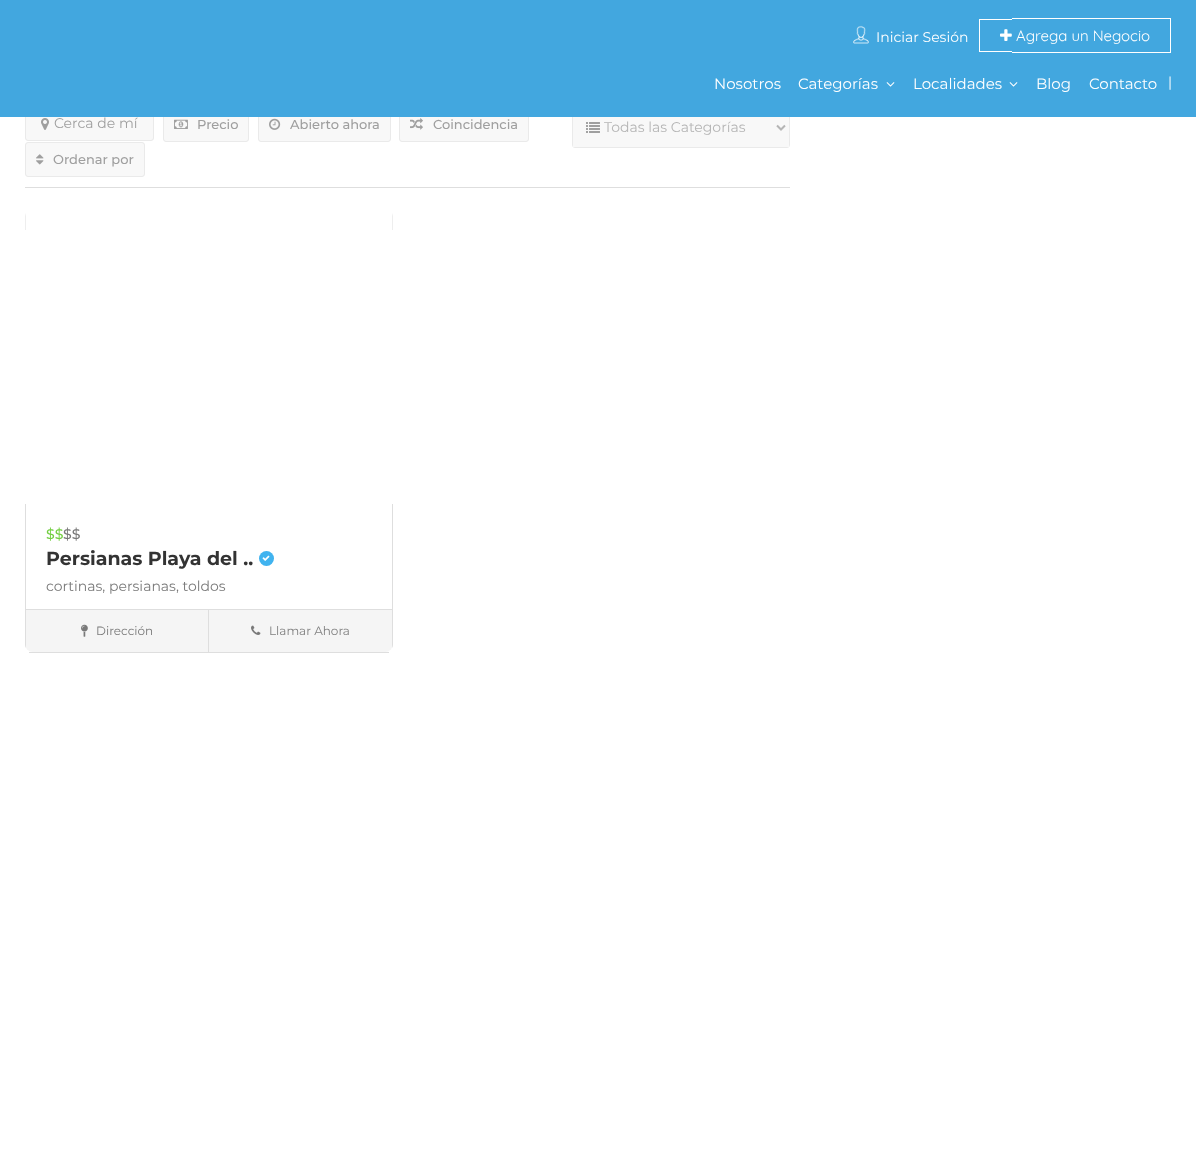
(async () => {
    const canvas = document.querySelector("canvas");
    canvas.width = 1196;
    canvas.height = 1172;
    const context = canvas.getContext("2d");
    context.miterLimit = 4;
    context.fontKerning = "normal";
    function write(s, x, y, font, color) {
        context.font = font;
        context.fillStyle = color;
        context.fillText(s, x, y);
    }
    function block(x, y, w, h, color) {
        context.fillStyle = color;
        context.fillRect(x, y, w, h);
    }
    async function photo(src, x, y, w, h) {
        const img = new Image();
        img.src = src;
        await img.decode();
        context.drawImage(img, x, y, w, h);
    }

    block(0, 0, 1196, 1172, "rgb(255, 255, 255)");
    context.fillStyle = "rgb(248, 248, 248)";
    context.beginPath();
    context.roundRect(25.5, 107.5, 128, 33, 2.5);
    context.fill();
    context.strokeStyle = "rgb(234, 234, 234)";
    context.stroke();
    context.beginPath();
    context.roundRect(163.5, 107.5, 85, 34, 2.5);
    context.fill();
    context.stroke();
    context.beginPath();
    context.roundRect(258.5, 107.5, 132, 34, 2.5);
    context.fill();
    context.stroke();
    context.beginPath();
    context.roundRect(399.5, 107.5, 129, 34, 2.5);
    context.fill();
    context.stroke();
    context.beginPath();
    context.roundRect(572.5, 107.5, 217, 40, 2.5);
    context.stroke();
    block(0, 0, 1196, 117, "rgb(66, 167, 223)");
    await photo("media/1.png", 853, 25, 16, 19);
    write("Iniciar Sesión", 876, 42, "14px Montserrat", "rgb(255, 255, 255)");
    block(979, 19, 33, 1, "rgb(255, 255, 255)");
    block(979, 51, 33, 1, "rgb(255, 255, 255)");
    block(979, 19, 1, 33, "rgb(255, 255, 255)");
    block(1012, 18, 159, 1, "rgb(255, 255, 255)");
    block(1170, 18, 1, 35, "rgb(255, 255, 255)");
    block(1012, 52, 159, 1, "rgb(255, 255, 255)");
    await photo("media/2.png", 1000, 29, 12, 12);
    write("Agrega un Negocio", 1016, 41, "300 15px Quicksand", "rgb(255, 255, 255)");
    write("Nosotros", 714, 89, "15px Montserrat", "rgb(255, 255, 255)");
    write("Categorías", 798, 89, "15px Montserrat", "rgb(255, 255, 255)");
    await photo("media/3.png", 886, 82, 9, 5);
    write("Localidades", 913, 89, "15px Montserrat", "rgb(255, 255, 255)");
    await photo("media/3.png", 1009, 82, 9, 5);
    write("Blog", 1036, 89, "15px Montserrat", "rgb(255, 255, 255)");
    write("Contacto", 1089, 89, "15px Montserrat", "rgb(255, 255, 255)");
    write("|", 1168, 87, "14px Montserrat", "rgb(255, 255, 255)");
    block(25, 187, 765, 1, "rgb(222, 222, 222)");
    await photo("media/4.png", 41, 118, 8, 12);
    write("Cerca de mí", 54, 128, "14px Montserrat", "rgb(159, 159, 159)");
    await photo("media/5.png", 174, 119, 14, 10);
    write("Precio", 197, 129, "500 13px Montserrat", "rgb(159, 159, 159)");
    await photo("media/6.png", 269, 118, 12, 12);
    write("Abierto ahora", 290, 129, "500 13px Montserrat", "rgb(159, 159, 159)");
    await photo("media/7.png", 410, 118, 13, 12);
    write("Coincidencia", 433, 129, "500 13px Montserrat", "rgb(159, 159, 159)");
    context.fillStyle = "rgb(248, 248, 248)";
    context.beginPath();
    context.roundRect(25.5, 142.5, 119, 34, 2.5);
    context.fill();
    context.stroke();
    await photo("media/8.png", 36, 154, 8, 11);
    write("Ordenar por", 53, 164, "500 13px Montserrat", "rgb(159, 159, 159)");
    block(573, 117, 216, 30, "rgb(248, 248, 248)");
    await photo("media/9.png", 586, 122, 14, 11);
    context.beginPath();
    context.moveTo(777, 125.5);
    context.lineTo(781, 129.5);
    context.lineTo(785, 125.5);
    context.strokeStyle = "rgb(181, 181, 181)";
    context.lineWidth = 2;
    context.stroke();
    write("Todas las Categorías", 604, 132, "14px Montserrat", "rgb(181, 181, 181)");
    block(29, 652, 360, 1, "rgb(222, 222, 222)");
    context.fillStyle = "rgb(238, 238, 238)";
    context.beginPath();
    context.moveTo(393, 230);
    context.lineTo(393, 217);
    context.bezierCurveTo(393, 215.5, 392.5, 214.5, 392, 213);
    context.lineTo(392, 230);
    context.closePath();
    context.fill();
    context.beginPath();
    context.moveTo(25, 217);
    context.lineTo(25, 230);
    context.lineTo(26, 230);
    context.lineTo(26, 213);
    context.bezierCurveTo(25.5, 214.5, 25, 215.5, 25, 217);
    context.closePath();
    context.fill();
    block(392, 504, 1, 105, "rgb(222, 222, 222)");
    block(25, 504, 1, 105, "rgb(222, 222, 222)");
    write("$$", 46, 539, "500 14px Montserrat", "rgb(115, 207, 66)");
    write("$$", 63, 539, "500 14px Montserrat", "rgb(121, 121, 121)");
    write("Persianas Playa del ..", 46, 565, "bold 19px Montserrat", "rgb(51, 51, 51)");
    context.fillStyle = "rgb(64, 179, 239)";
    context.beginPath();
    context.arc(266.5, 558.5, 7.5, 0, Math.PI * 2);
    context.fill();
    await photo("media/10.png", 262, 555, 8, 6);
    write("cortinas, persianas, toldos", 46, 591, "14px Montserrat", "rgb(121, 121, 121)");
    context.fillStyle = "rgb(245, 245, 245)";
    context.beginPath();
    context.roundRect(25, 609, 368, 43, [0, 0, 8, 8]);
    context.fill();
    context.fillStyle = "rgb(222, 222, 222)";
    context.beginPath();
    context.moveTo(392, 609);
    context.lineTo(392, 648);
    context.bezierCurveTo(392.5, 647, 393, 646, 393, 645);
    context.lineTo(393, 609);
    context.closePath();
    context.fill();
    context.beginPath();
    context.moveTo(25, 609);
    context.lineTo(25, 645);
    context.bezierCurveTo(25, 646, 25.5, 647, 26, 648);
    context.lineTo(26, 609);
    context.closePath();
    context.fill();
    block(26, 609, 366, 1, "rgb(222, 222, 222)");
    block(208, 609, 1, 43, "rgb(222, 222, 222)");
    await photo("media/11.png", 81, 624, 7, 13);
    write("Dirección", 96, 635, "12px Montserrat", "rgb(121, 121, 121)");
    await photo("media/12.png", 251, 625, 10, 10);
    write("Llamar Ahora", 269, 635, "12px Montserrat", "rgb(127, 127, 127)");
})();
